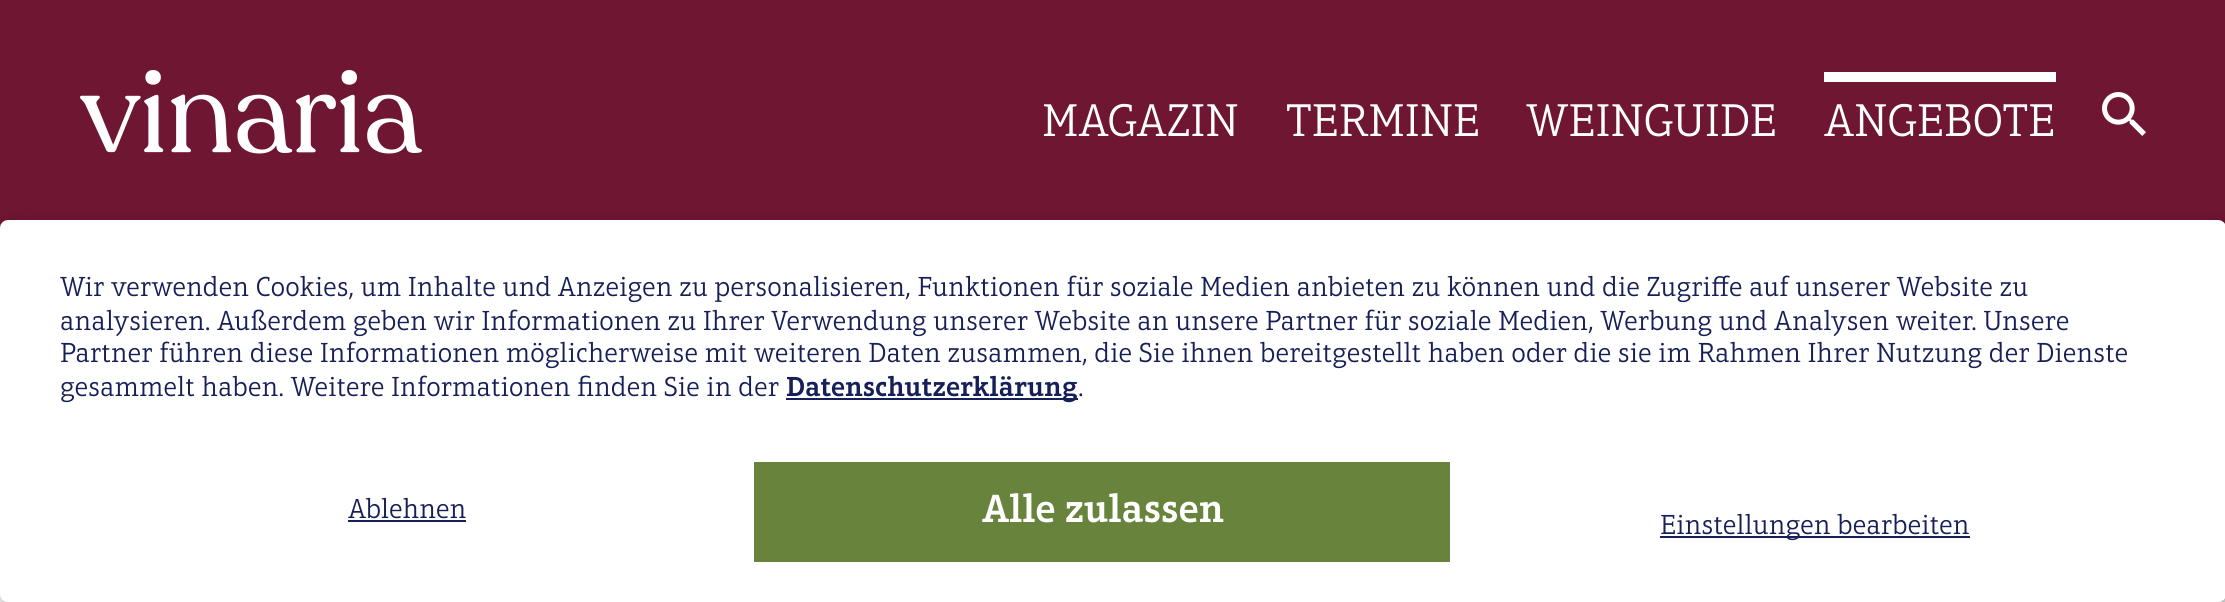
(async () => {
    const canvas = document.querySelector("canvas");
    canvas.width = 2225;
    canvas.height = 602;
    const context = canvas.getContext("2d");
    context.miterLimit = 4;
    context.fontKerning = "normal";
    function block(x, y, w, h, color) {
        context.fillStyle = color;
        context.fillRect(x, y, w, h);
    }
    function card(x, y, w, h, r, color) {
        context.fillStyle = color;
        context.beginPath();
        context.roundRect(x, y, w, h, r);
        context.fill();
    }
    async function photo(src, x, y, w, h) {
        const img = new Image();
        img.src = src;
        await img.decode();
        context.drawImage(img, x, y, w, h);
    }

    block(0, 0, 2225, 602, "rgb(255, 255, 255)");
    block(0, 0, 2225, 228, "rgb(110, 22, 50)");
    await photo("media/1.png", 80, 70, 342, 84);
    await photo("media/2.png", 1043, 103, 195, 34);
    await photo("media/3.png", 1287, 104, 191, 32);
    await photo("media/4.png", 1526, 103, 249, 34);
    block(1824, 72, 232, 10, "rgb(255, 255, 255)");
    await photo("media/5.png", 1824, 103, 229, 34);
    await photo("media/6.png", 2102, 92, 44, 44);
    context.fillStyle = "rgba(0, 0, 0, 0.19)";
    context.filter = "blur(10px)";
    context.beginPath();
    context.roundRect(10, 230, 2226, 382, 8);
    context.fill();
    context.filter = "none";
    context.fillStyle = "rgba(0, 0, 0, 0.2)";
    context.filter = "blur(6px)";
    context.beginPath();
    context.roundRect(0, 228, 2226, 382, 8);
    context.fill();
    context.filter = "none";
    card(0, 220, 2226, 382, 8, "rgb(255, 255, 255)");
    await photo("media/7.png", 60, 275, 1968, 28);
    await photo("media/8.png", 61, 309, 2008, 28);
    await photo("media/9.png", 61, 341, 2066, 28);
    await photo("media/10.png", 61, 375, 718, 28);
    block(786, 398, 292, 2, "rgb(22, 31, 87)");
    await photo("media/11.png", 787, 375, 290, 28);
    await photo("media/12.png", 1079, 393, 4, 4);
    await photo("media/13.png", 348, 497, 118, 22);
    block(348, 520, 118, 2, "rgb(22, 31, 87)");
    block(754, 462, 696, 100, "rgb(104, 131, 60)");
    await photo("media/14.png", 982, 493, 242, 30);
    block(1660, 536, 310, 2, "rgb(22, 31, 87)");
    await photo("media/15.png", 1661, 513, 308, 28);
})();
